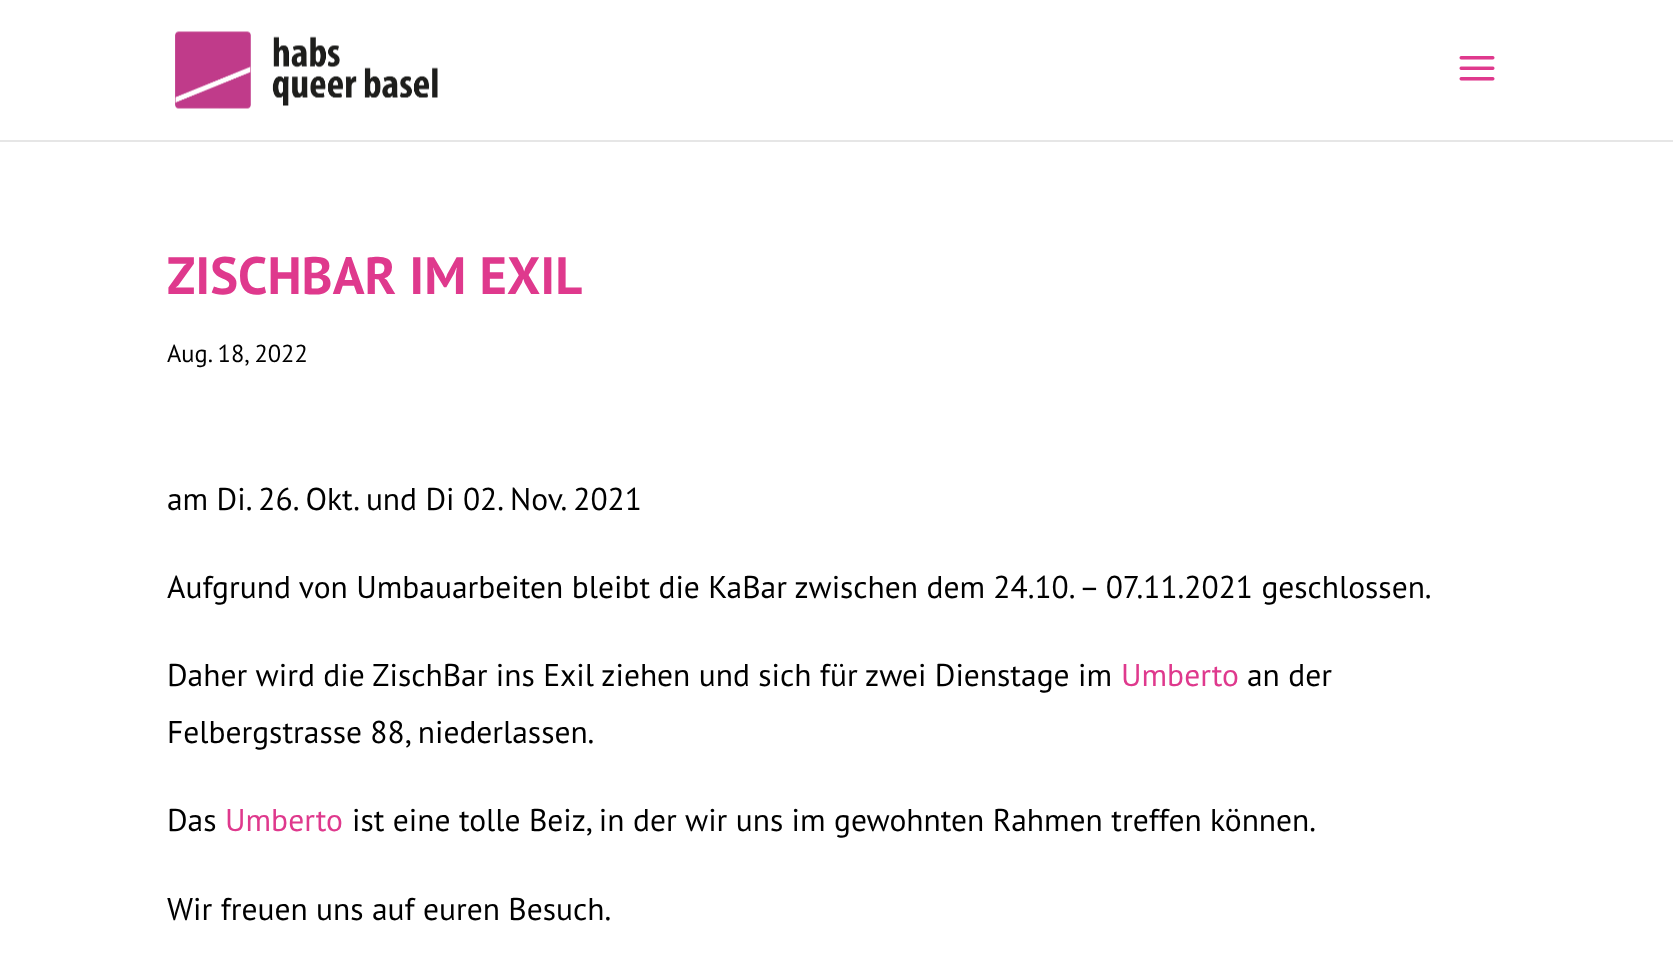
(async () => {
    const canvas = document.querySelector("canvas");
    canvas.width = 1673;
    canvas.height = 956;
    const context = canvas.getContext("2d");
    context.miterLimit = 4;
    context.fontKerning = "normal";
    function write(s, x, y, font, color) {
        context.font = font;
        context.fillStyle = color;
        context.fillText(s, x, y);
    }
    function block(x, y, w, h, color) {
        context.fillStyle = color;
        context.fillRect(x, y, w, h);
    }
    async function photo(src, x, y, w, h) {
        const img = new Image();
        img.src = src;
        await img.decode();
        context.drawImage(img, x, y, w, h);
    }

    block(0, 0, 1673, 956, "rgb(255, 255, 255)");
    block(0, 140, 1673, 2, "rgb(230, 230, 230)");
    await photo("media/1.png", 175, 31, 263, 78);
    await photo("media/2.png", 1459, 56, 36, 25);
    write("ZISCHBAR IM EXIL", 167, 294, "bold 52.5px PT Sans", "rgb(223, 57, 141)");
    write("Aug. 18, 2022", 167, 362, "24.5px PT Sans", "rgb(0, 0, 0)");
    write("am Di. 26. Okt. und Di 02. Nov. 2021", 167, 510, "31.5px PT Sans", "rgb(0, 0, 0)");
    write("Aufgrund von Umbauarbeiten bleibt die KaBar zwischen dem 24.10. – 07.11.2021 geschlossen.", 167, 598, "31.5px PT Sans", "rgb(0, 0, 0)");
    write("Daher wird die ZischBar ins Exil ziehen und sich für zwei Dienstage im", 167, 686, "31.5px PT Sans", "rgb(0, 0, 0)");
    write("Umberto", 1121, 686, "31.5px PT Sans", "rgb(223, 57, 141)");
    write("an der", 1247, 686, "31.5px PT Sans", "rgb(0, 0, 0)");
    write("Felbergstrasse 88, niederlassen.", 167, 743, "31.5px PT Sans", "rgb(0, 0, 0)");
    write("Das", 167, 831, "31.5px PT Sans", "rgb(0, 0, 0)");
    write("Umberto", 225, 831, "31.5px PT Sans", "rgb(223, 57, 141)");
    write("ist eine tolle Beiz, in der wir uns im gewohnten Rahmen treffen können.", 352, 831, "31.5px PT Sans", "rgb(0, 0, 0)");
    write("Wir freuen uns auf euren Besuch.", 167, 920, "31.5px PT Sans", "rgb(0, 0, 0)");
})();
